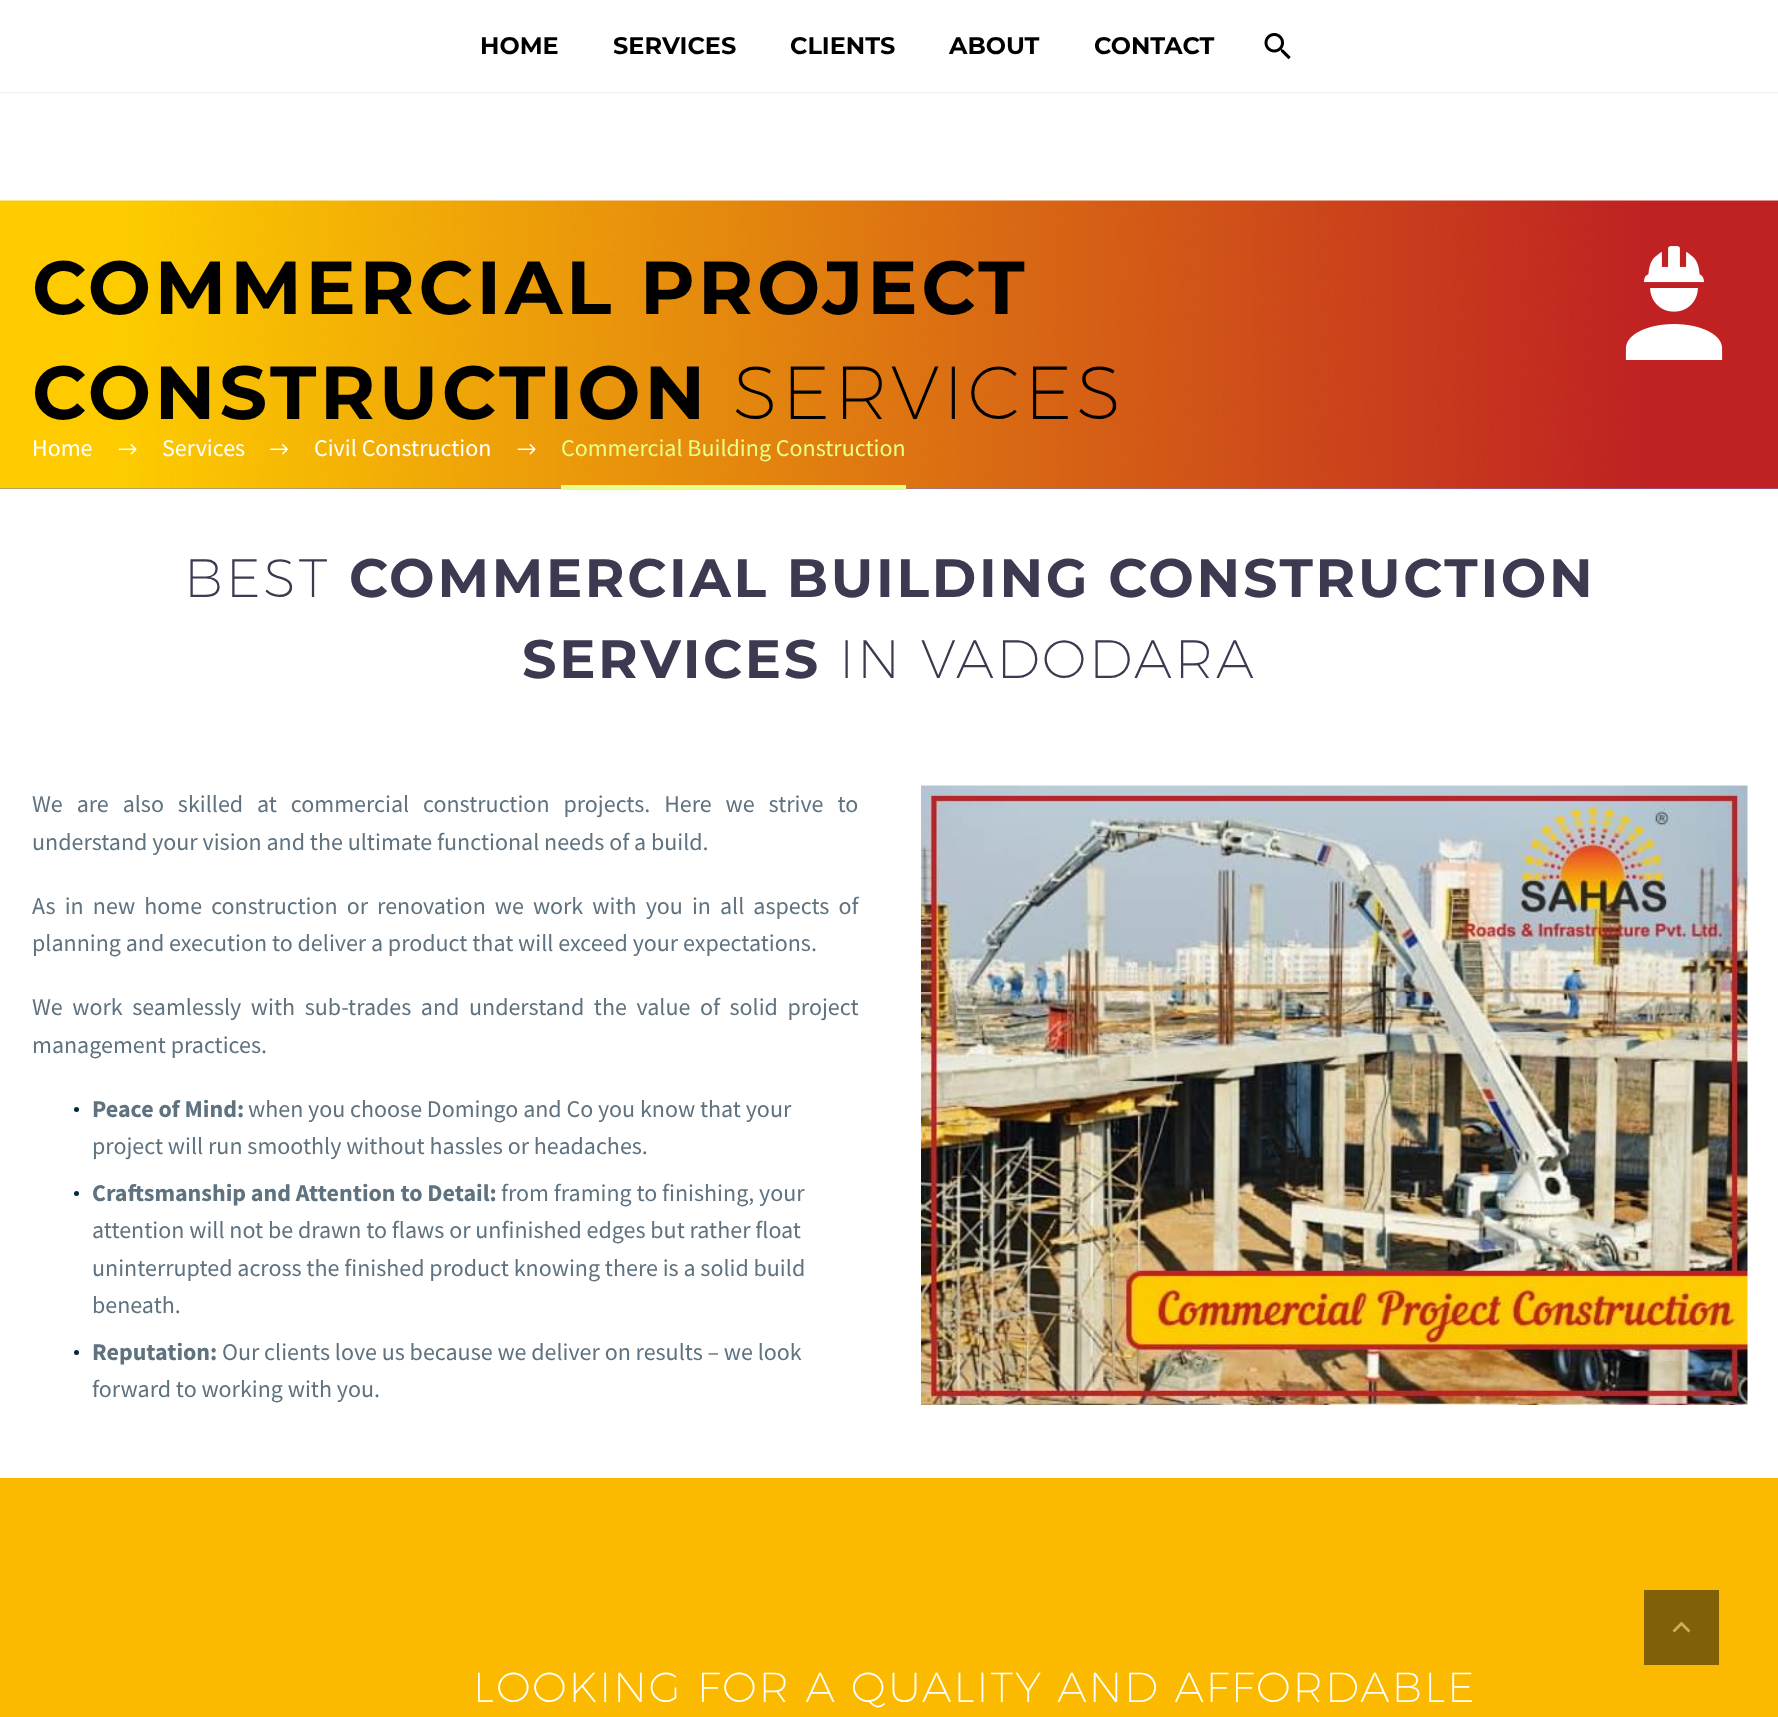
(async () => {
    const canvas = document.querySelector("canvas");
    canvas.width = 1778;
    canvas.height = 1717;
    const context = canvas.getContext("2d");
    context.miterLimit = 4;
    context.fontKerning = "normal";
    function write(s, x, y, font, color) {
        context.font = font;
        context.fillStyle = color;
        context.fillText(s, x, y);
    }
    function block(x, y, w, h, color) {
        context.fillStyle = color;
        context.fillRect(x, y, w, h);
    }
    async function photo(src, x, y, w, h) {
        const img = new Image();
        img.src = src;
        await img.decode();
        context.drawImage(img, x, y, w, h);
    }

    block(0, 0, 1778, 1717, "rgb(255, 255, 255)");
    context.save();
    context.beginPath();
    context.moveTo(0, 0);
    context.lineTo(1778, 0);
    context.lineTo(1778, 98);
    context.lineTo(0, 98);
    context.closePath();
    context.moveTo(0, 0);
    context.lineTo(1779, 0);
    context.lineTo(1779, 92);
    context.lineTo(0, 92);
    context.closePath();
    context.clip("evenodd");
    context.fillStyle = "rgba(56, 69, 84, 0.2)";
    context.filter = "blur(1.5px)";
    context.beginPath();
    context.rect(0, 0, 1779, 92);
    context.fill();
    context.filter = "none";
    context.restore();
    write("HOME", 480, 54, "bold 24px Montserrat", "rgb(0, 0, 0)");
    write("SERVICES", 613, 54, "bold 24px Montserrat", "rgb(0, 0, 0)");
    write("CLIENTS", 790, 54, "bold 24px Montserrat", "rgb(0, 0, 0)");
    write("ABOUT", 949, 54, "bold 24px Montserrat", "rgb(0, 0, 0)");
    write("CONTACT", 1094, 54, "bold 24px Montserrat", "rgb(0, 0, 0)");
    await photo("media/1.png", 1264, 33, 27, 27);
    block(0, 91, 1778, 1, "rgba(255, 255, 255, 0.95)");
    block(0, 488, 1778, 1, "rgb(108, 124, 208)");
    await photo("media/2.png", 0, 200, 1778, 289);
    context.letterSpacing = "3.75px";
    write("COMMERCIAL PROJECT", 32, 314, "bold 75px Montserrat", "rgb(0, 0, 0)");
    write("CONSTRUCTION", 32, 419, "bold 75px Montserrat", "rgb(0, 0, 0)");
    write("SERVICES", 733, 419, "200 75px Montserrat", "rgb(0, 0, 0)");
    await photo("media/3.png", 1625, 246, 49, 114);
    await photo("media/4.png", 1674, 246, 49, 114);
    context.letterSpacing = "0px";
    write("Home", 32, 456, "24px Source Sans Pro", "rgb(255, 255, 255)");
    await photo("media/5.png", 118, 444, 19, 11);
    write("Services", 162, 456, "24px Source Sans Pro", "rgb(255, 255, 255)");
    await photo("media/6.png", 270, 444, 18, 11);
    write("Civil Construction", 314, 456, "24px Source Sans Pro", "rgb(255, 255, 255)");
    await photo("media/7.png", 517, 444, 19, 11);
    block(561, 485, 345, 5, "rgb(231, 255, 137)");
    write("Commercial Building Construction", 561, 456, "24px Source Sans Pro", "rgb(231, 255, 137)");
    context.letterSpacing = "2.7px";
    write("BEST", 184, 597, "200 54px Montserrat", "rgb(60, 57, 80)");
    write("COMMERCIAL BUILDING CONSTRUCTION", 349, 597, "bold 54px Montserrat", "rgb(60, 57, 80)");
    write("SERVICES", 522, 678, "bold 54px Montserrat", "rgb(60, 57, 80)");
    write("IN VADODARA", 839, 678, "200 54px Montserrat", "rgb(60, 57, 80)");
    context.letterSpacing = "0px";
    context.wordSpacing = "9.1px";
    write("We are also skilled at commercial construction projects. Here we strive to", 32, 812, "24px Source Sans Pro", "rgb(95, 114, 127)");
    context.wordSpacing = "0px";
    write("understand your vision and the ultimate functional needs of a build.", 32, 850, "24px Source Sans Pro", "rgb(95, 114, 127)");
    context.wordSpacing = "4.25px";
    write("As in new home construction or renovation we work with you in all aspects of", 32, 914, "24px Source Sans Pro", "rgb(95, 114, 127)");
    context.wordSpacing = "0px";
    write("planning and execution to deliver a product that will exceed your expectations.", 32, 951, "24px Source Sans Pro", "rgb(95, 114, 127)");
    context.wordSpacing = "4.75px";
    write("We work seamlessly with sub-trades and understand the value of solid project", 32, 1015, "24px Source Sans Pro", "rgb(95, 114, 127)");
    context.wordSpacing = "0px";
    write("management practices.", 32, 1053, "24px Source Sans Pro", "rgb(95, 114, 127)");
    context.fillStyle = "rgb(0, 43, 54)";
    context.beginPath();
    context.arc(76.5, 1109.5, 2.5, 0, Math.PI * 2);
    context.fill();
    write("Peace of Mind:", 92, 1117, "bold 24px Source Sans Pro", "rgb(95, 114, 127)");
    write("when you choose Domingo and Co you know that your", 248, 1117, "24px Source Sans Pro", "rgb(95, 114, 127)");
    write("project will run smoothly without hassles or headaches.", 92, 1154, "24px Source Sans Pro", "rgb(95, 114, 127)");
    context.fillStyle = "rgb(0, 43, 54)";
    context.beginPath();
    context.arc(76.5, 1193.5, 2.5, 0, Math.PI * 2);
    context.fill();
    write("Craftsmanship and Attention to Detail:", 92, 1201, "bold 24px Source Sans Pro", "rgb(95, 114, 127)");
    write("from framing to finishing, your", 501, 1201, "24px Source Sans Pro", "rgb(95, 114, 127)");
    write("attention will not be drawn to flaws or unfinished edges but rather float", 92, 1238, "24px Source Sans Pro", "rgb(95, 114, 127)");
    write("uninterrupted across the finished product knowing there is a solid build", 92, 1276, "24px Source Sans Pro", "rgb(95, 114, 127)");
    write("beneath.", 92, 1313, "24px Source Sans Pro", "rgb(95, 114, 127)");
    context.fillStyle = "rgb(0, 43, 54)";
    context.beginPath();
    context.arc(76.5, 1352.5, 2.5, 0, Math.PI * 2);
    context.fill();
    write("Reputation:", 92, 1360, "bold 24px Source Sans Pro", "rgb(95, 114, 127)");
    write("Our clients love us because we deliver on results – we look", 222, 1360, "24px Source Sans Pro", "rgb(95, 114, 127)");
    write("forward to working with you.", 92, 1397, "24px Source Sans Pro", "rgb(95, 114, 127)");
    await photo("media/8.png", 921, 785, 827, 620);
    block(0, 1478, 1778, 239, "rgb(251, 186, 0)");
    context.letterSpacing = "2.1px";
    write("LOOKING FOR A QUALITY AND AFFORDABLE", 473, 1702, "200 42px Montserrat", "rgb(255, 255, 255)");
    block(1644, 1590, 75, 75, "rgb(129, 96, 8)");
    context.fillStyle = "rgb(202, 178, 91)";
    context.beginPath();
    context.moveTo(1674.5, 1632.5);
    context.lineTo(1681.5, 1625.5);
    context.lineTo(1688.5, 1632.5);
    context.lineTo(1690.5, 1630.5);
    context.lineTo(1681.5, 1621.5);
    context.lineTo(1672.5, 1630.5);
    context.closePath();
    context.fill();
})();
